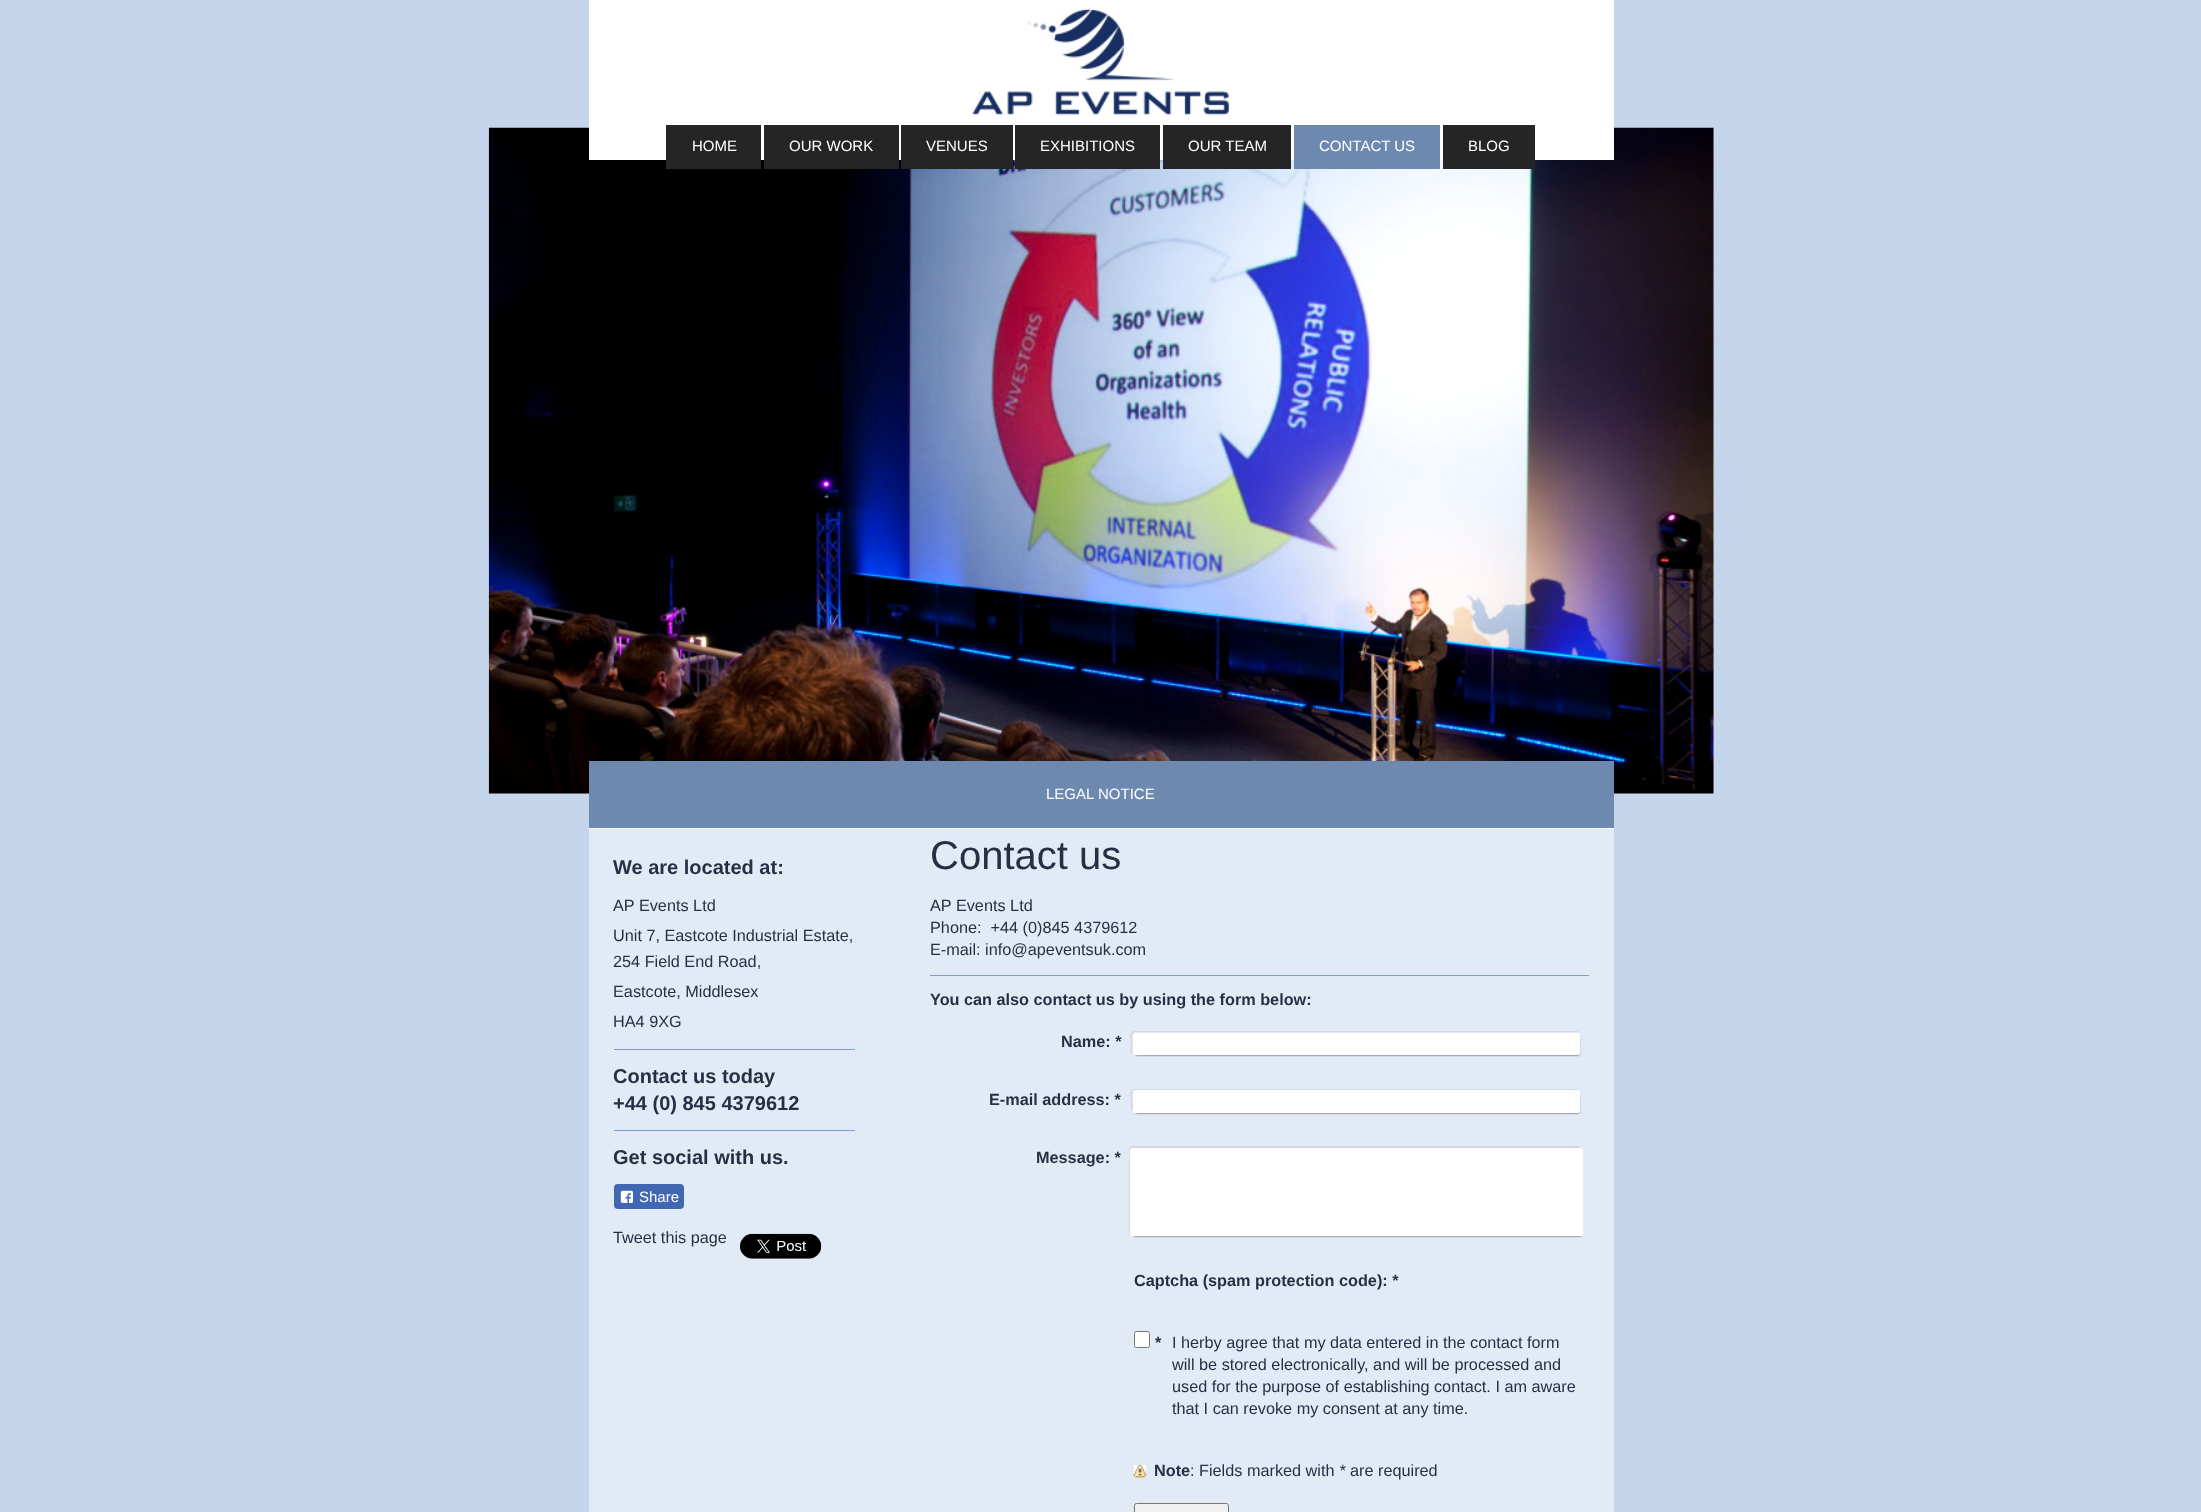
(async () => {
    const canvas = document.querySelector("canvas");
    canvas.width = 2201;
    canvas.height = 1512;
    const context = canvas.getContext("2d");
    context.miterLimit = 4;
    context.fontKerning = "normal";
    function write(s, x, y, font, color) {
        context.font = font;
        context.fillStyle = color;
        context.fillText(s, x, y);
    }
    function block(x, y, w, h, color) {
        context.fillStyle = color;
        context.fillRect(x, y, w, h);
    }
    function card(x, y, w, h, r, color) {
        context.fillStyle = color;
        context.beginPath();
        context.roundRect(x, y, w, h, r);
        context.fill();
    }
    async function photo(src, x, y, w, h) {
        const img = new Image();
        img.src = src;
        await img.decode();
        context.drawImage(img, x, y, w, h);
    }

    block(0, 0, 2201, 1512, "rgb(196, 213, 236)");
    block(489, 128, 1225, 666, "rgb(238, 238, 238)");
    await photo("media/1.png", 488, 127, 1226, 667);
    block(589, 0, 1025, 160, "rgb(255, 255, 255)");
    await photo("media/2.png", 972, 8, 258, 108);
    block(666, 125, 95, 44, "rgb(37, 37, 37)");
    write("HOME", 692, 151, "15px Liberation Sans", "rgb(255, 255, 255)");
    block(764, 125, 135, 44, "rgb(37, 37, 37)");
    write("OUR WORK", 789, 151, "15px Liberation Sans", "rgb(255, 255, 255)");
    block(901, 125, 112, 44, "rgb(37, 37, 37)");
    write("VENUES", 926, 151, "15px Liberation Sans", "rgb(255, 255, 255)");
    block(1015, 125, 145, 44, "rgb(37, 37, 37)");
    write("EXHIBITIONS", 1040, 151, "15px Liberation Sans", "rgb(255, 255, 255)");
    block(1163, 125, 128, 44, "rgb(37, 37, 37)");
    write("OUR TEAM", 1188, 151, "15px Liberation Sans", "rgb(255, 255, 255)");
    block(1294, 125, 146, 44, "rgb(110, 137, 175)");
    write("CONTACT US", 1319, 151, "15px Liberation Sans", "rgb(255, 255, 255)");
    block(1443, 125, 92, 44, "rgb(37, 37, 37)");
    write("BLOG", 1468, 151, "15px Liberation Sans", "rgb(255, 255, 255)");
    block(589, 761, 1025, 67, "rgb(110, 137, 175)");
    block(589, 828, 1025, 1, "rgb(255, 255, 255)");
    write("LEGAL NOTICE", 1046, 799, "15px Liberation Sans", "rgb(255, 255, 255)");
    block(589, 829, 1025, 683, "rgb(226, 234, 246)");
    write("We are located at:", 613, 874, "bold 20px Liberation Sans", "rgb(36, 49, 69)");
    write("AP Events Ltd", 613, 911, "16.25px Liberation Sans", "rgb(36, 49, 69)");
    write("Unit 7, Eastcote Industrial Estate,", 613, 941, "16.25px Liberation Sans", "rgb(36, 49, 69)");
    write("254 Field End Road,", 613, 967, "16.25px Liberation Sans", "rgb(36, 49, 69)");
    write("Eastcote, Middlesex", 613, 997, "16.25px Liberation Sans", "rgb(36, 49, 69)");
    write("HA4 9XG", 613, 1027, "16.25px Liberation Sans", "rgb(36, 49, 69)");
    block(614, 1049, 241, 1, "rgb(121, 158, 213)");
    write("Contact us today", 613, 1083, "bold 20px Liberation Sans", "rgb(36, 49, 69)");
    write("+44 (0) 845 4379612", 613, 1110, "bold 20px Liberation Sans", "rgb(36, 49, 69)");
    block(614, 1130, 241, 1, "rgb(121, 158, 213)");
    write("Get social with us.", 613, 1164, "bold 20px Liberation Sans", "rgb(36, 49, 69)");
    card(614, 1184, 70, 25, 4, "rgb(66, 103, 178)");
    await photo("media/3.png", 620, 1190, 13, 13);
    write("Share", 639, 1202, "15px Liberation Sans", "rgb(255, 255, 255)");
    write("Tweet this page", 613, 1243, "16.25px Liberation Sans", "rgb(36, 49, 69)");
    await photo("media/4.png", 740, 1233, 82, 26);
    write("Contact us", 930, 869, "40px Liberation Sans", "rgb(36, 49, 69)");
    write("AP Events Ltd", 930, 911, "16.25px Liberation Sans", "rgb(36, 49, 69)");
    write("Phone:  +44 (0)845 4379612", 930, 933, "16.25px Liberation Sans", "rgb(36, 49, 69)");
    write("E-mail: info@apeventsuk.com", 930, 955, "16.25px Liberation Sans", "rgb(36, 49, 69)");
    block(930, 975, 659, 1, "rgb(121, 158, 213)");
    write("You can also contact us by using the form below:", 930, 1005, "bold 16.25px Liberation Sans", "rgb(36, 49, 69)");
    context.fillStyle = "rgb(208, 215, 226)";
    context.beginPath();
    context.moveTo(1134, 1031);
    context.bezierCurveTo(1129, 1031, 1131, 1040, 1131, 1042);
    context.bezierCurveTo(1131, 1045, 1129, 1053, 1133, 1054);
    context.lineTo(1132, 1052);
    context.lineTo(1132, 1035);
    context.bezierCurveTo(1132, 1034, 1134, 1032, 1135, 1032);
    context.lineTo(1578, 1032);
    context.lineTo(1579, 1033);
    context.bezierCurveTo(1579, 1032, 1578, 1031, 1576, 1031);
    context.closePath();
    context.fill();
    context.fillStyle = "rgba(0, 0, 0, 0.8)";
    context.filter = "blur(1px)";
    context.beginPath();
    context.rect(1136, 1038, 443, 17);
    context.fill();
    context.filter = "none";
    card(1133, 1033, 447, 22, 2.5, "rgb(255, 255, 255)");
    write("Name: *", 1061, 1047, "bold 16.25px Liberation Sans", "rgb(36, 49, 69)");
    context.fillStyle = "rgb(208, 215, 226)";
    context.beginPath();
    context.moveTo(1134, 1089);
    context.bezierCurveTo(1129, 1089, 1131, 1098, 1131, 1100);
    context.bezierCurveTo(1131, 1102, 1130, 1110, 1133, 1111);
    context.lineTo(1132, 1101);
    context.bezierCurveTo(1132, 1099, 1131, 1090, 1135, 1090);
    context.lineTo(1579, 1090);
    context.bezierCurveTo(1578, 1090, 1577, 1089, 1576, 1089);
    context.closePath();
    context.fill();
    context.fillStyle = "rgba(0, 0, 0, 0.8)";
    context.filter = "blur(1px)";
    context.beginPath();
    context.rect(1136, 1095, 443, 18);
    context.fill();
    context.filter = "none";
    card(1133, 1090, 447, 23, 2.5, "rgb(255, 255, 255)");
    write("E-mail address: *", 989, 1105, "bold 16.25px Liberation Sans", "rgb(36, 49, 69)");
    context.fillStyle = "rgb(208, 215, 226)";
    context.beginPath();
    context.moveTo(1132, 1146);
    context.bezierCurveTo(1130, 1146, 1129, 1147, 1129, 1148);
    context.lineTo(1129, 1232);
    context.bezierCurveTo(1129, 1233, 1129, 1234, 1130, 1235);
    context.lineTo(1130, 1164);
    context.bezierCurveTo(1130, 1159, 1128, 1148, 1132, 1148);
    context.lineTo(1581, 1148);
    context.bezierCurveTo(1581, 1147, 1580, 1146, 1578, 1146);
    context.closePath();
    context.fill();
    context.fillStyle = "rgba(0, 0, 0, 0.8)";
    context.filter = "blur(1px)";
    context.beginPath();
    context.rect(1134, 1153, 447, 83);
    context.fill();
    context.filter = "none";
    card(1130, 1148, 453, 88, 2.5, "rgb(255, 255, 255)");
    write("Message: *", 1036, 1163, "bold 16.25px Liberation Sans", "rgb(36, 49, 69)");
    write("Captcha (spam protection code): *", 1134, 1286, "bold 16.25px Liberation Sans", "rgb(36, 49, 69)");
    context.fillStyle = "rgb(255, 255, 255)";
    context.beginPath();
    context.roundRect(1134.5, 1331.5, 15, 16, 2);
    context.fill();
    context.strokeStyle = "rgb(118, 118, 118)";
    context.stroke();
    write("*", 1155, 1348, "bold 16.25px Liberation Sans", "rgb(36, 49, 69)");
    write("I herby agree that my data entered in the contact form", 1172, 1348, "16.25px Liberation Sans", "rgb(36, 49, 69)");
    write("will be stored electronically, and will be processed and", 1172, 1370, "16.25px Liberation Sans", "rgb(36, 49, 69)");
    write("used for the purpose of establishing contact. I am aware", 1172, 1392, "16.25px Liberation Sans", "rgb(36, 49, 69)");
    write("that I can revoke my consent at any time.", 1172, 1414, "16.25px Liberation Sans", "rgb(36, 49, 69)");
    await photo("media/5.png", 1133, 1465, 14, 13);
    write("Note", 1154, 1476, "bold 16.25px Liberation Sans", "rgb(36, 49, 69)");
    write(": Fields marked with", 1190, 1476, "16.25px Liberation Sans", "rgb(36, 49, 69)");
    write("*", 1339, 1476, "italic 16.25px Liberation Sans", "rgb(36, 49, 69)");
    write("are required", 1350, 1476, "16.25px Liberation Sans", "rgb(36, 49, 69)");
    context.fillStyle = "rgb(239, 239, 239)";
    context.beginPath();
    context.roundRect(1134.5, 1503.5, 94, 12, 2);
    context.fill();
    context.stroke();
})();
